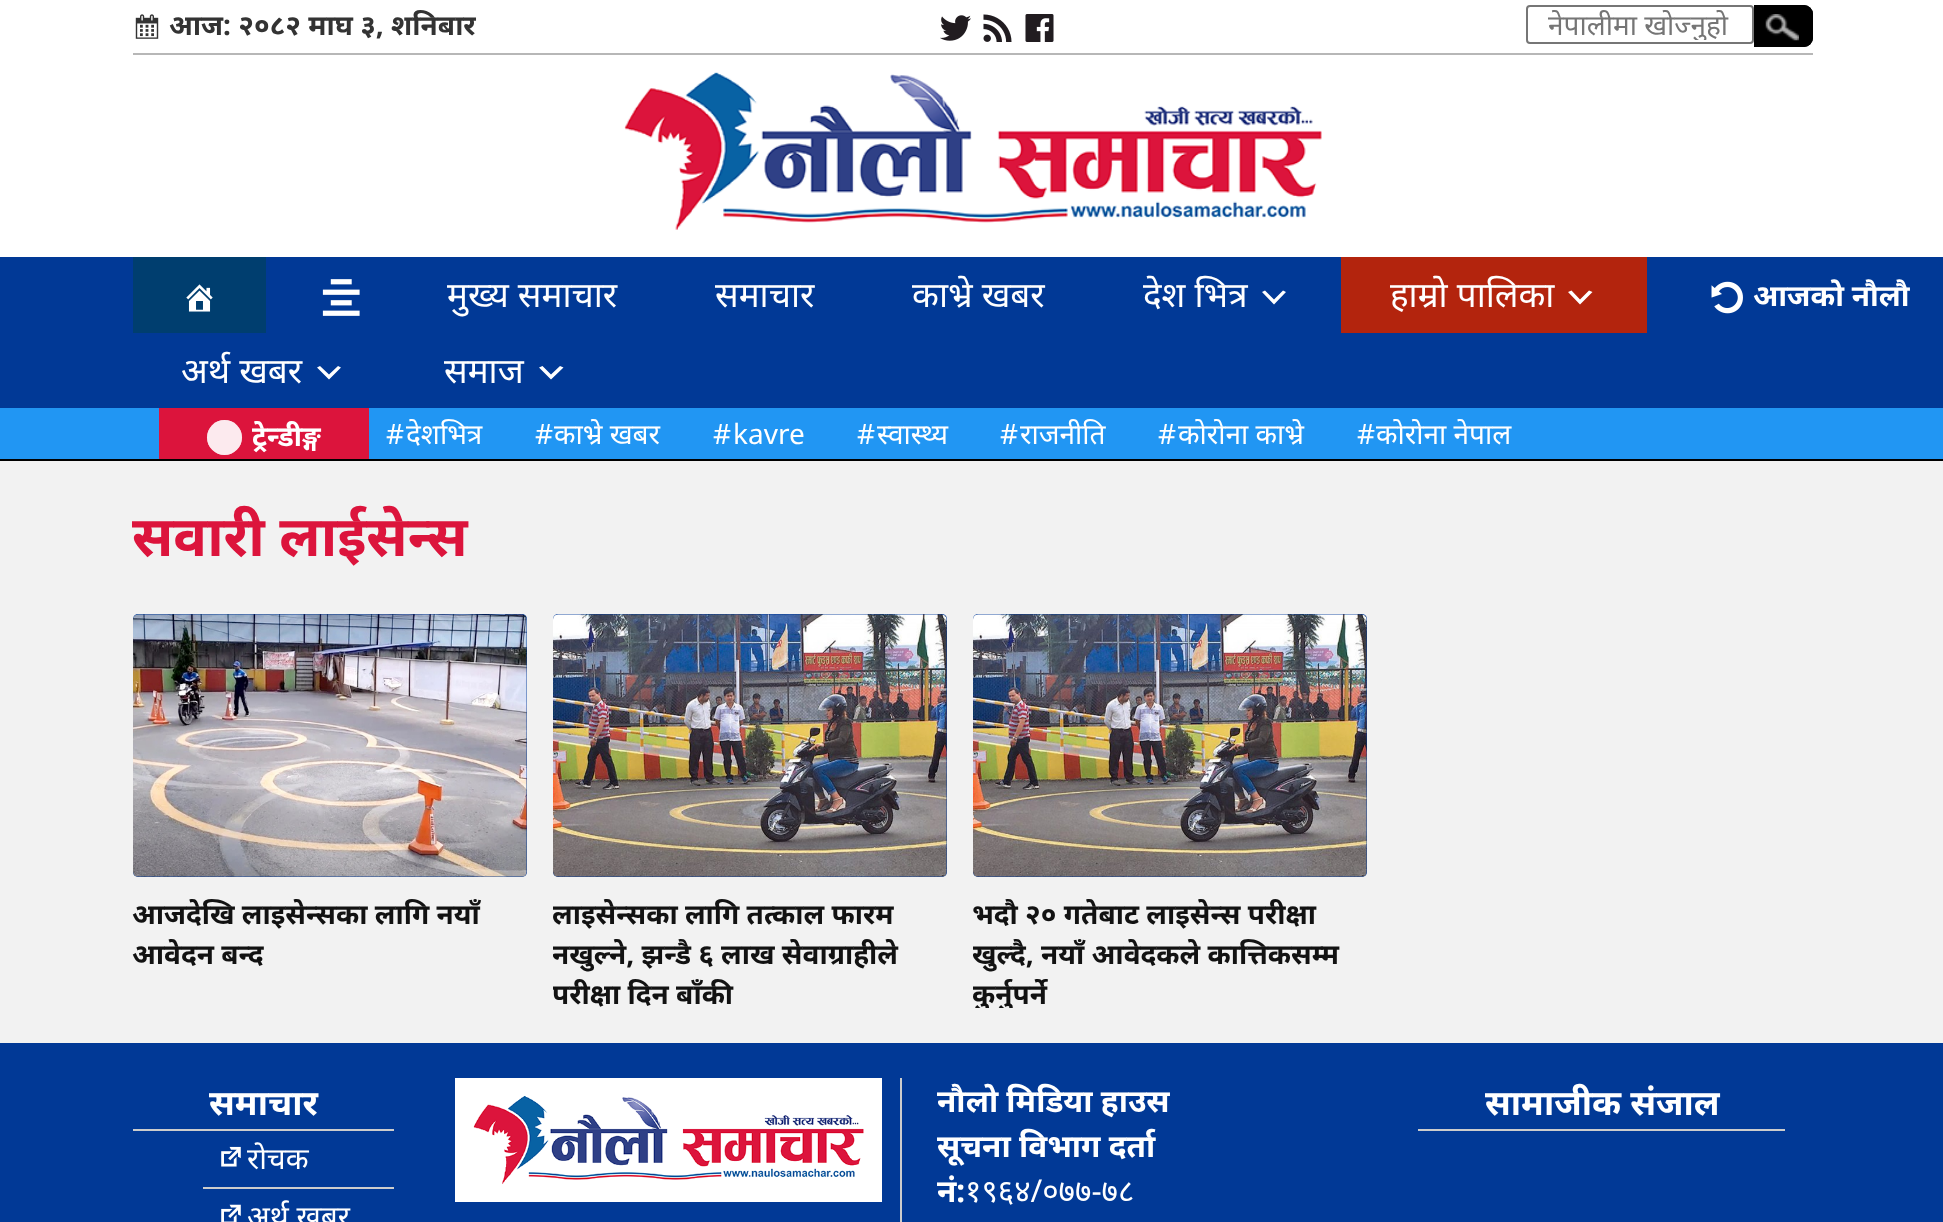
(async () => {
    const canvas = document.querySelector("canvas");
    canvas.width = 1943;
    canvas.height = 1222;
    const context = canvas.getContext("2d");
    context.miterLimit = 4;
    context.fontKerning = "normal";
    function write(s, x, y, font, color) {
        context.font = font;
        context.fillStyle = color;
        context.fillText(s, x, y);
    }
    function block(x, y, w, h, color) {
        context.fillStyle = color;
        context.fillRect(x, y, w, h);
    }
    function card(x, y, w, h, r, color) {
        context.fillStyle = color;
        context.beginPath();
        context.roundRect(x, y, w, h, r);
        context.fill();
    }
    async function photo(src, x, y, w, h) {
        const img = new Image();
        img.src = src;
        await img.decode();
        context.drawImage(img, x, y, w, h);
    }

    block(0, 0, 1943, 1222, "rgb(242, 242, 242)");
    block(0, 0, 1943, 257, "rgb(255, 255, 255)");
    block(133, 53, 1680, 2, "rgb(183, 183, 183)");
    await photo("media/1.png", 135, 14, 24, 25);
    write("आज: २०८२ माघ ३, शनिबार", 169, 35, "bold 28px Noto Sans", "rgb(51, 51, 51)");
    await photo("media/2.png", 940, 15, 31, 26);
    await photo("media/3.png", 983, 14, 29, 28);
    await photo("media/4.png", 1025, 14, 29, 28);
    context.beginPath();
    context.roundRect(1527, 6, 226, 37, 3);
    context.strokeStyle = "rgb(118, 118, 118)";
    context.lineWidth = 2;
    context.stroke();
    context.save();
    context.beginPath();
    context.roundRect(1530, 9, 220, 31, [5, 0, 0, 5]);
    context.clip();
    context.beginPath();
    context.rect(1547, 5, 186, 39);
    context.clip();
    write("नेपालीमा खोज्‍नुहो", 1548, 35, "28px Noto Sans", "rgb(117, 117, 117)");
    context.restore();
    context.fillStyle = "rgb(0, 0, 0)";
    context.beginPath();
    context.roundRect(1754, 5, 59, 42, [0, 9, 9, 0]);
    context.fill();
    await photo("media/5.png", 1765, 14, 34, 27);
    context.beginPath();
    context.roundRect(1756, 7, 55, 38, [0, 7, 7, 0]);
    context.strokeStyle = "rgb(0, 0, 0)";
    context.lineWidth = 4;
    context.stroke();
    await photo("media/6.png", 624, 72, 698, 158);
    block(0, 257, 1943, 151, "rgb(1, 57, 150)");
    block(133, 257, 133, 76, "rgb(0, 62, 111)");
    await photo("media/7.png", 186, 284, 27, 28);
    await photo("media/8.png", 322, 279, 38, 37);
    write("मुख्य समाचार", 447, 307, "35px Noto Sans", "rgb(255, 255, 255)");
    write("समाचार", 715, 307, "35px Noto Sans", "rgb(255, 255, 255)");
    write("काभ्रे खबर", 912, 307, "35px Noto Sans", "rgb(255, 255, 255)");
    write("देश भित्र", 1143, 307, "35px Noto Sans", "rgb(255, 255, 255)");
    context.beginPath();
    context.moveTo(1265, 290.5);
    context.lineTo(1274, 299.5);
    context.lineTo(1283, 290.5);
    context.lineTo(1286, 292);
    context.lineTo(1274, 304.5);
    context.lineTo(1262, 292);
    context.closePath();
    context.fill();
    block(1341, 257, 306, 76, "rgb(179, 36, 13)");
    write("हाम्रो पालिका", 1390, 307, "35px Noto Sans", "rgb(255, 255, 255)");
    context.beginPath();
    context.moveTo(1571.5, 290.5);
    context.lineTo(1580, 299.5);
    context.lineTo(1589, 290.5);
    context.lineTo(1592.5, 292);
    context.lineTo(1580, 304.5);
    context.lineTo(1568, 292);
    context.closePath();
    context.fill();
    write("अर्थ खबर", 181, 383, "35px Noto Sans", "rgb(255, 255, 255)");
    context.beginPath();
    context.moveTo(320, 366);
    context.lineTo(329, 374.5);
    context.lineTo(338, 366);
    context.lineTo(341, 367.5);
    context.lineTo(329, 379.5);
    context.lineTo(317, 367.5);
    context.closePath();
    context.fill();
    write("समाज", 444, 383, "35px Noto Sans", "rgb(255, 255, 255)");
    context.beginPath();
    context.moveTo(542.5, 366);
    context.lineTo(551, 374.5);
    context.lineTo(560, 366);
    context.lineTo(563.5, 367.5);
    context.lineTo(551, 379.5);
    context.lineTo(539, 367.5);
    context.closePath();
    context.fill();
    await photo("media/9.png", 1711, 281, 32, 33);
    write("आजको नौलौ", 1753, 306, "bold 29.75px Noto Sans", "rgb(255, 255, 255)");
    block(0, 408, 1943, 51, "rgb(33, 150, 243)");
    block(0, 459, 1943, 2, "rgb(0, 0, 0)");
    block(159, 408, 210, 51, "rgb(220, 20, 60)");
    write("ट्रेन्डीङ्ग", 252, 446, "bold 28px Noto Sans", "rgb(255, 255, 255)");
    context.fillStyle = "rgb(245, 185, 197)";
    context.beginPath();
    context.arc(224.5, 437.5, 17.5, 0, Math.PI * 2);
    context.fill();
    context.fillStyle = "rgba(255, 255, 255, 0.7)";
    context.beginPath();
    context.arc(224.5, 437.5, 17.5, 0, Math.PI * 2);
    context.fill();
    write("#", 386, 444, "28px Noto Sans", "rgb(255, 255, 255)");
    write("देशभित्र", 406, 444, "28px Noto Sans", "rgb(255, 255, 255)");
    write("#", 535, 444, "28px Noto Sans", "rgb(255, 255, 255)");
    write("काभ्रे खबर", 554, 444, "28px Noto Sans", "rgb(255, 255, 255)");
    write("#", 713, 444, "28px Noto Sans", "rgb(255, 255, 255)");
    write("kavre", 733, 444, "28px Noto Sans", "rgb(255, 255, 255)");
    write("#", 857, 444, "28px Noto Sans", "rgb(255, 255, 255)");
    write("स्वास्थ्य", 877, 444, "28px Noto Sans", "rgb(255, 255, 255)");
    write("#", 1000, 444, "28px Noto Sans", "rgb(255, 255, 255)");
    write("राजनीति", 1020, 444, "28px Noto Sans", "rgb(255, 255, 255)");
    write("#", 1158, 444, "28px Noto Sans", "rgb(255, 255, 255)");
    write("काेराेना काभ्रे", 1178, 444, "28px Noto Sans", "rgb(255, 255, 255)");
    write("#", 1357, 444, "28px Noto Sans", "rgb(255, 255, 255)");
    write("काेराेना नेपाल", 1376, 444, "28px Noto Sans", "rgb(255, 255, 255)");
    write("सवारी लाईसेन्स", 132, 556, "bold 56px Noto Sans", "rgb(220, 20, 60)");
    card(133, 614, 394, 263, 5, "rgb(1, 57, 150)");
    await photo("media/10.png", 133, 614, 394, 263);
    write("आजदेखि लाइसेन्सका लागि नयाँ", 132, 924, "bold 28px Noto Sans", "rgb(18, 18, 18)");
    write("आवेदन बन्द", 132, 964, "bold 28px Noto Sans", "rgb(18, 18, 18)");
    card(553, 614, 394, 263, 5, "rgb(1, 57, 150)");
    await photo("media/11.png", 553, 614, 394, 263);
    context.save();
    context.beginPath();
    context.rect(553, 894, 394, 114);
    context.clip();
    write("लाइसेन्सका लागि तत्काल फारम", 552, 924, "bold 28px Noto Sans", "rgb(18, 18, 18)");
    write("नखुल्ने, झन्डै ६ लाख सेवाग्राहीले", 552, 964, "bold 28px Noto Sans", "rgb(18, 18, 18)");
    write("परीक्षा दिन बाँकी", 552, 1004, "bold 28px Noto Sans", "rgb(18, 18, 18)");
    context.restore();
    card(973, 614, 394, 263, 5, "rgb(1, 57, 150)");
    await photo("media/12.png", 973, 614, 394, 263);
    write("भदौ २० गतेबाट लाइसेन्स परीक्षा", 972, 924, "bold 28px Noto Sans", "rgb(18, 18, 18)");
    context.save();
    context.beginPath();
    context.rect(973, 894, 394, 114);
    context.clip();
    write("खुल्दै, नयाँ आवेदकले कात्तिकसम्म", 972, 964, "bold 28px Noto Sans", "rgb(18, 18, 18)");
    write("कुर्नुपर्ने", 972, 1004, "bold 28px Noto Sans", "rgb(18, 18, 18)");
    context.restore();
    block(0, 1043, 1943, 179, "rgb(1, 57, 150)");
    block(133, 1129, 261, 2, "rgb(204, 204, 204)");
    write("समाचार", 209, 1115, "bold 35px Noto Sans", "rgb(255, 255, 255)");
    block(203, 1187, 191, 2, "rgb(204, 204, 204)");
    await photo("media/13.png", 221, 1146, 20, 21);
    write("रोचक", 247, 1169, "29.75px Noto Sans", "rgb(255, 255, 255)");
    await photo("media/14.png", 221, 1204, 20, 18);
    write("अर्थ खबर", 247, 1227, "29.75px Noto Sans", "rgb(255, 255, 255)");
    block(900, 1078, 2, 144, "rgb(204, 204, 204)");
    block(455, 1078, 427, 124, "rgb(255, 255, 255)");
    await photo("media/15.png", 473, 1096, 391, 88);
    write("नौलो मिडिया हाउस", 937, 1112, "bold 31.5px Noto Sans", "rgb(255, 255, 255)");
    write("सूचना विभाग दर्ता", 937, 1157, "bold 31.5px Noto Sans", "rgb(255, 255, 255)");
    write("नं:", 937, 1202, "bold 31.5px Noto Sans", "rgb(255, 255, 255)");
    write("१९६४/०७७-७८", 965, 1202, "31.5px Noto Sans", "rgb(255, 255, 255)");
    block(1418, 1129, 367, 2, "rgb(204, 204, 204)");
    write("सामाजीक संजाल", 1485, 1115, "bold 35px Noto Sans", "rgb(255, 255, 255)");
})();
